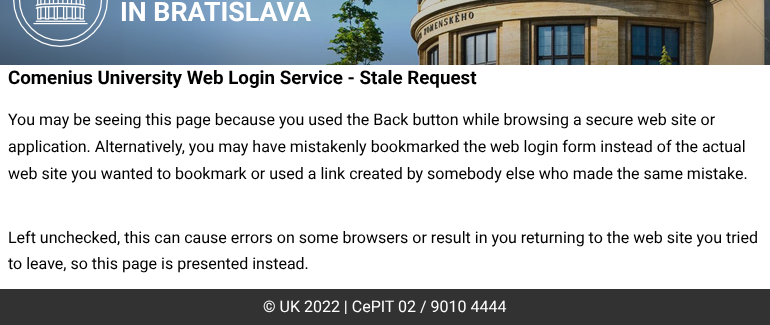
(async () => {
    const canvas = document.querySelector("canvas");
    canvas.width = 770;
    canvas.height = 325;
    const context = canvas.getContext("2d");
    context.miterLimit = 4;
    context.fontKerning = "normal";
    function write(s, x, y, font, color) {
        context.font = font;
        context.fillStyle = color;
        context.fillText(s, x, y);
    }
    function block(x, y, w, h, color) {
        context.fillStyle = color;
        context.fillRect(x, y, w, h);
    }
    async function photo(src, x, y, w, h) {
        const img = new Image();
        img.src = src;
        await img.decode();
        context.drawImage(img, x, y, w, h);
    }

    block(0, 0, 770, 325, "rgb(255, 255, 255)");
    await photo("media/1.png", 0, 0, 770, 65);
    await photo("media/2.png", 13, 0, 95, 47);
    write("IN BRATISLAVA", 120, 21, "bold 26.75px Roboto", "rgb(255, 255, 255)");
    write("Comenius University Web Login Service - Stale Request", 8, 84, "bold 18.75px Roboto", "rgb(0, 0, 0)");
    write("You may be seeing this page because you used the Back button while browsing a secure web site or", 8, 125, "16px Roboto", "rgb(0, 0, 0)");
    write("application. Alternatively, you may have mistakenly bookmarked the web login form instead of the actual", 8, 152, "16px Roboto", "rgb(0, 0, 0)");
    write("web site you wanted to bookmark or used a link created by somebody else who made the same mistake.", 8, 179, "16px Roboto", "rgb(0, 0, 0)");
    write("Left unchecked, this can cause errors on some browsers or result in you returning to the web site you tried", 8, 243, "16px Roboto", "rgb(0, 0, 0)");
    write("to leave, so this page is presented instead.", 8, 269, "16px Roboto", "rgb(0, 0, 0)");
    block(0, 289, 770, 36, "rgb(50, 50, 50)");
    write("© UK 2022 | CePIT 02 / 9010 4444", 263, 312, "16px Roboto", "rgb(255, 255, 255)");
})();
